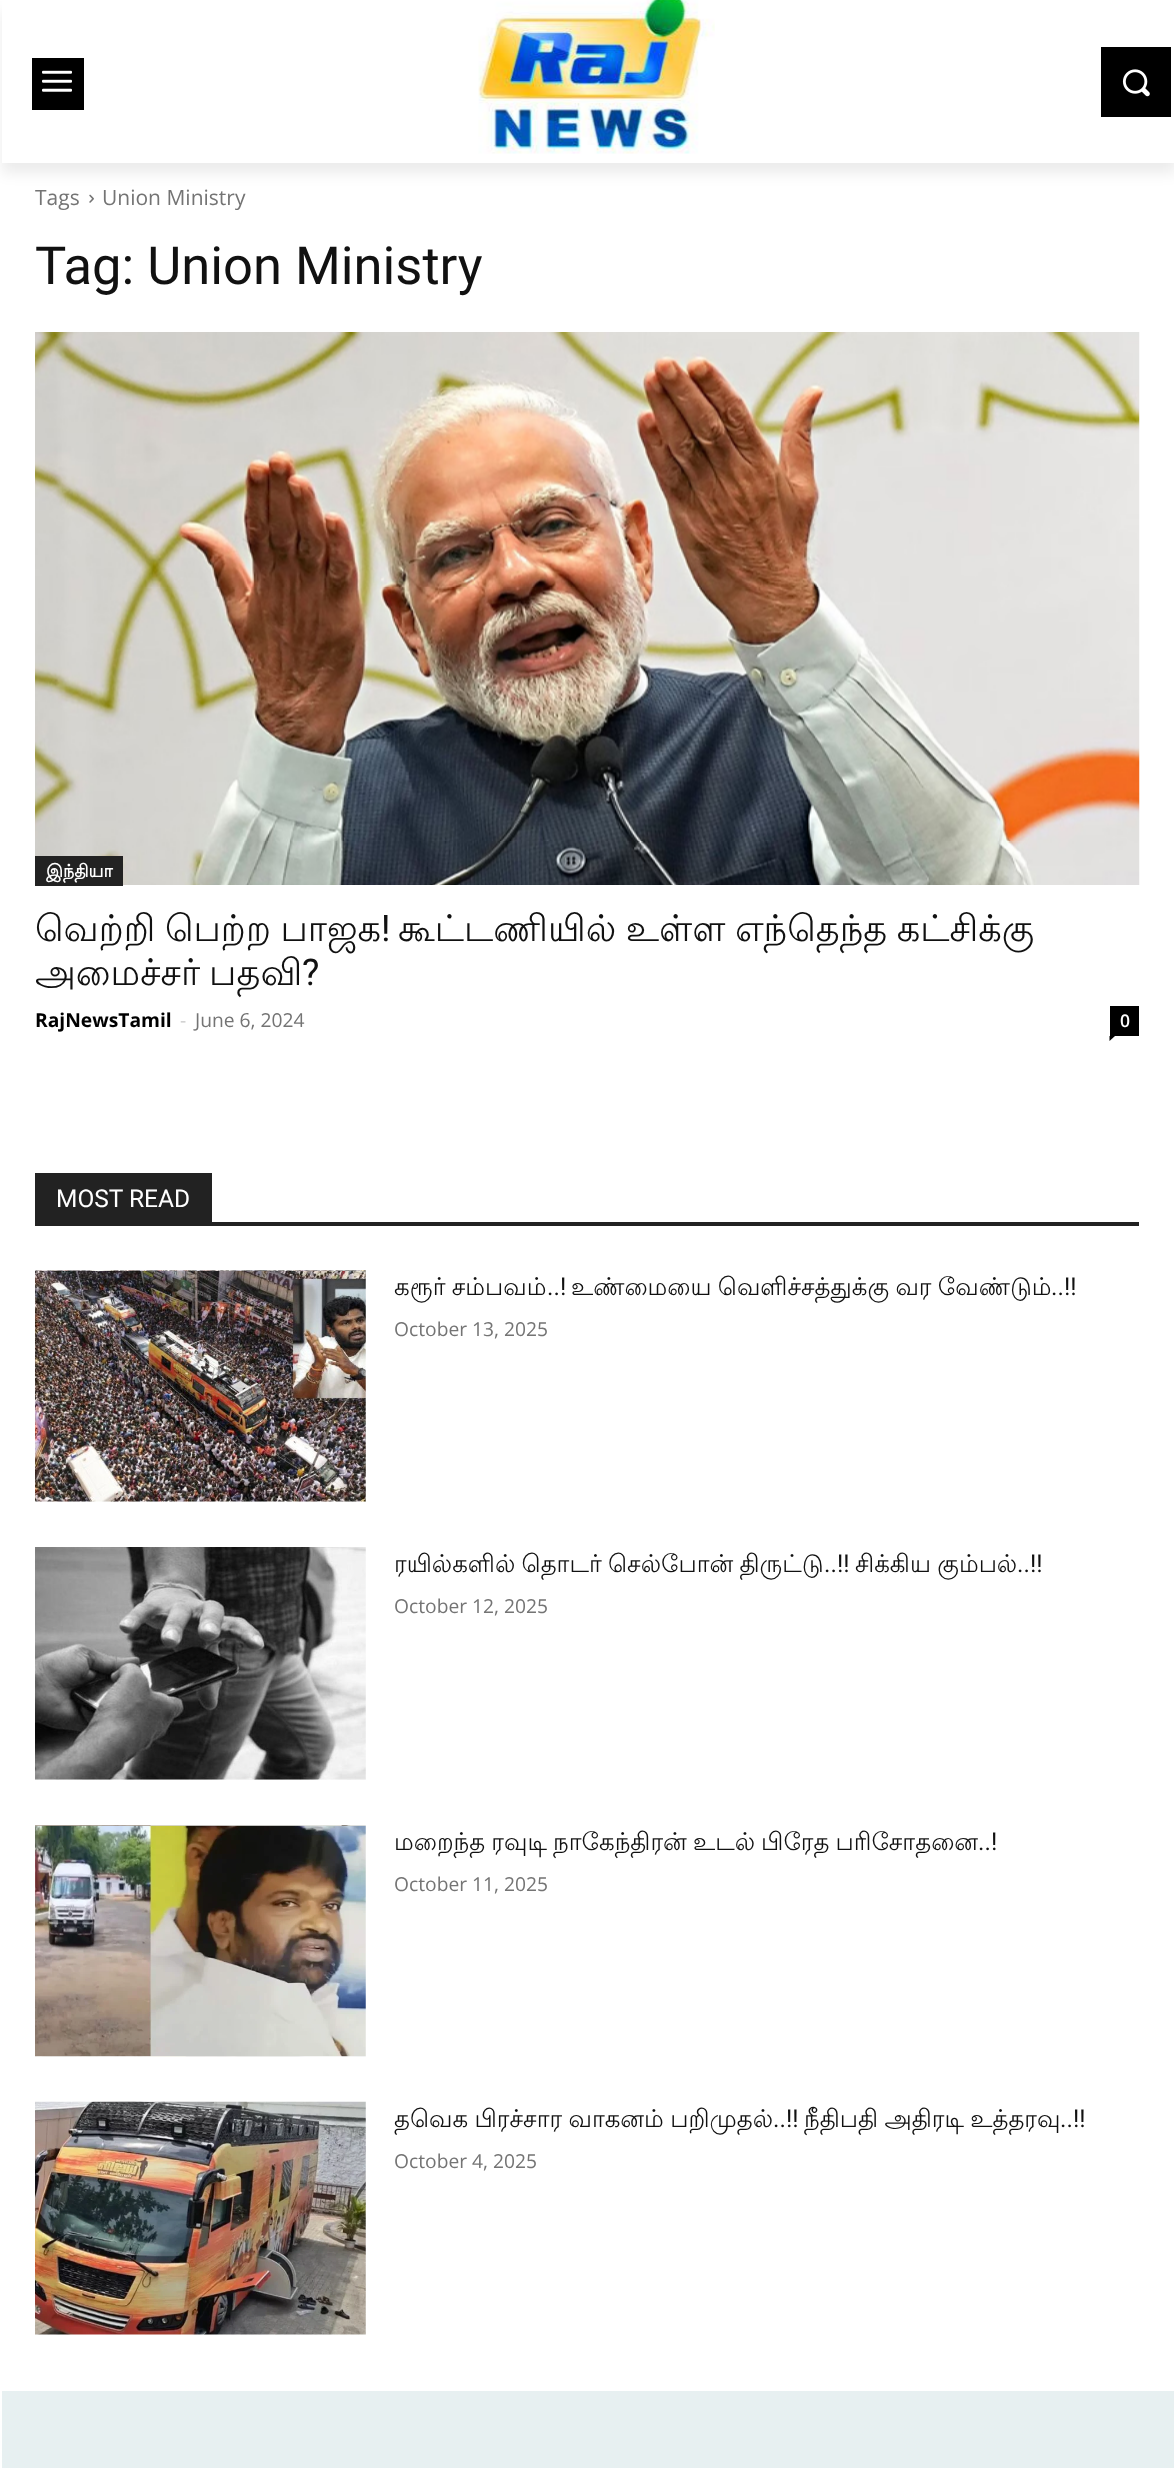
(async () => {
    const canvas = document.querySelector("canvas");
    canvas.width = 1174;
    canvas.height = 2468;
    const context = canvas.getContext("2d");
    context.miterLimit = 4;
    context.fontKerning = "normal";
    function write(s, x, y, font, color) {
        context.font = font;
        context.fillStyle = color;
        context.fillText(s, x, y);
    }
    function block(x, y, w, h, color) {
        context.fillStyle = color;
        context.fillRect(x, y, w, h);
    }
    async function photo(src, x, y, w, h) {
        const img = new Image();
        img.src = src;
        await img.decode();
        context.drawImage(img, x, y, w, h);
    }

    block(0, 0, 1174, 2468, "rgb(255, 255, 255)");
    block(32, 58, 52, 52, "rgb(0, 0, 0)");
    await photo("media/1.png", 42, 70, 30, 22);
    await photo("media/2.png", 478, 0, 237, 154);
    block(1101, 47, 70, 70, "rgb(0, 0, 0)");
    await photo("media/3.png", 1122, 69, 28, 28);
    await photo("media/4.png", 89, 194, 5, 9);
    context.save();
    context.beginPath();
    context.moveTo(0, 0);
    context.lineTo(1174, 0);
    context.lineTo(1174, 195);
    context.lineTo(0, 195);
    context.closePath();
    context.moveTo(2, 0);
    context.lineTo(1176, 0);
    context.lineTo(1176, 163);
    context.lineTo(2, 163);
    context.closePath();
    context.clip("evenodd");
    context.fillStyle = "rgba(0, 0, 0, 0.08)";
    context.filter = "blur(7px)";
    context.beginPath();
    context.rect(2, 11, 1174, 162);
    context.fill();
    context.filter = "none";
    context.restore();
    write("Tags", 35, 205, "21px Open Sans", "rgb(116, 116, 116)");
    write("Union Ministry", 102, 205, "21px Open Sans", "rgb(116, 116, 116)");
    write("Tag: Union Ministry", 35, 284, "52.5px Roboto", "rgb(17, 17, 17)");
    await photo("media/5.png", 35, 332, 1105, 553);
    block(35, 856, 88, 30, "rgb(34, 34, 34)");
    write("இந்தியா", 46, 877, "bold 17.5px Lohit Tamil", "rgb(255, 255, 255)");
    context.wordSpacing = "-1.5px";
    write("வெற்றி பெற்ற பாஜக", 35, 941, "36.75px Lohit Tamil", "rgb(17, 17, 17)");
    context.wordSpacing = "0px";
    write("!", 381, 941, "36.75px Roboto", "rgb(17, 17, 17)");
    context.wordSpacing = "-1.5px";
    write("கூட்டணியில் உள்ள எந்தெந்த கட்சிக்கு", 398, 941, "36.75px Lohit Tamil", "rgb(17, 17, 17)");
    context.wordSpacing = "-2px";
    write("அமைச்சர் பதவி", 35, 985, "36.75px Lohit Tamil", "rgb(17, 17, 17)");
    context.wordSpacing = "0px";
    write("?", 302, 985, "36.75px Roboto", "rgb(17, 17, 17)");
    write("RajNewsTamil", 35, 1027, "bold 19.25px Open Sans", "rgb(0, 0, 0)");
    write("-", 180, 1027, "19.25px Open Sans", "rgb(204, 204, 204)");
    write("June 6, 2024", 195, 1027, "19.25px Open Sans", "rgb(116, 116, 116)");
    block(1110, 1006, 29, 30, "rgb(0, 0, 0)");
    write("0", 1120, 1027, "600 17.5px Open Sans", "rgb(255, 255, 255)");
    context.fillStyle = "rgb(0, 0, 0)";
    context.beginPath();
    context.moveTo(1109.5, 1036);
    context.lineTo(1115, 1036);
    context.lineTo(1109.5, 1041);
    context.closePath();
    context.fill();
    block(35, 1222, 1104, 4, "rgb(34, 34, 34)");
    block(35, 1173, 177, 49, "rgb(34, 34, 34)");
    write("MOST READ", 56, 1207, "24.5px Roboto", "rgb(255, 255, 255)");
    await photo("media/6.png", 35, 1270, 331, 232);
    context.wordSpacing = "-1px";
    write("கரூர் சம்பவம்", 394, 1295, "24.5px Lohit Tamil", "rgb(17, 17, 17)");
    context.wordSpacing = "0px";
    write("..!", 547, 1295, "24.5px Roboto", "rgb(17, 17, 17)");
    context.wordSpacing = "-1px";
    write("உண்மையை வெளிச்சத்துக்கு வர வேண்டும்", 571, 1295, "24.5px Lohit Tamil", "rgb(17, 17, 17)");
    context.wordSpacing = "0px";
    write("..!!", 1051, 1295, "24.5px Roboto", "rgb(17, 17, 17)");
    write("October 13, 2025", 394, 1336, "19.25px Open Sans", "rgb(116, 116, 116)");
    await photo("media/7.png", 35, 1547, 331, 233);
    context.wordSpacing = "-1px";
    write("ரயில்களில் தொடர் செல்போன் திருட்டு", 394, 1572, "24.5px Lohit Tamil", "rgb(17, 17, 17)");
    context.wordSpacing = "0px";
    write("..!!", 824, 1572, "24.5px Roboto", "rgb(17, 17, 17)");
    context.wordSpacing = "-1px";
    write("சிக்கிய கும்பல்", 855, 1572, "24.5px Lohit Tamil", "rgb(17, 17, 17)");
    context.wordSpacing = "0px";
    write("..!!", 1017, 1572, "24.5px Roboto", "rgb(17, 17, 17)");
    write("October 12, 2025", 394, 1613, "19.25px Open Sans", "rgb(116, 116, 116)");
    await photo("media/8.png", 35, 1825, 331, 232);
    context.wordSpacing = "-1.25px";
    write("மறைந்த ரவுடி நாகேந்திரன் உடல் பிரேத பரிசோதனை", 394, 1850, "24.5px Lohit Tamil", "rgb(17, 17, 17)");
    context.wordSpacing = "0px";
    write("..!", 978, 1850, "24.5px Roboto", "rgb(17, 17, 17)");
    write("October 11, 2025", 394, 1891, "19.25px Open Sans", "rgb(116, 116, 116)");
    await photo("media/9.png", 35, 2101, 331, 234);
    context.wordSpacing = "-1px";
    write("தவெக பிரச்சார வாகனம் பறிமுதல்", 394, 2127, "24.5px Lohit Tamil", "rgb(17, 17, 17)");
    context.wordSpacing = "0px";
    write("..!!", 773, 2127, "24.5px Roboto", "rgb(17, 17, 17)");
    context.wordSpacing = "-1px";
    write("நீதிபதி அதிரடி உத்தரவு", 804, 2127, "24.5px Lohit Tamil", "rgb(17, 17, 17)");
    context.wordSpacing = "0px";
    write("..!!", 1060, 2127, "24.5px Roboto", "rgb(17, 17, 17)");
    write("October 4, 2025", 394, 2168, "19.25px Open Sans", "rgb(116, 116, 116)");
    block(2, 2391, 1172, 77, "rgb(231, 240, 241)");
})();
